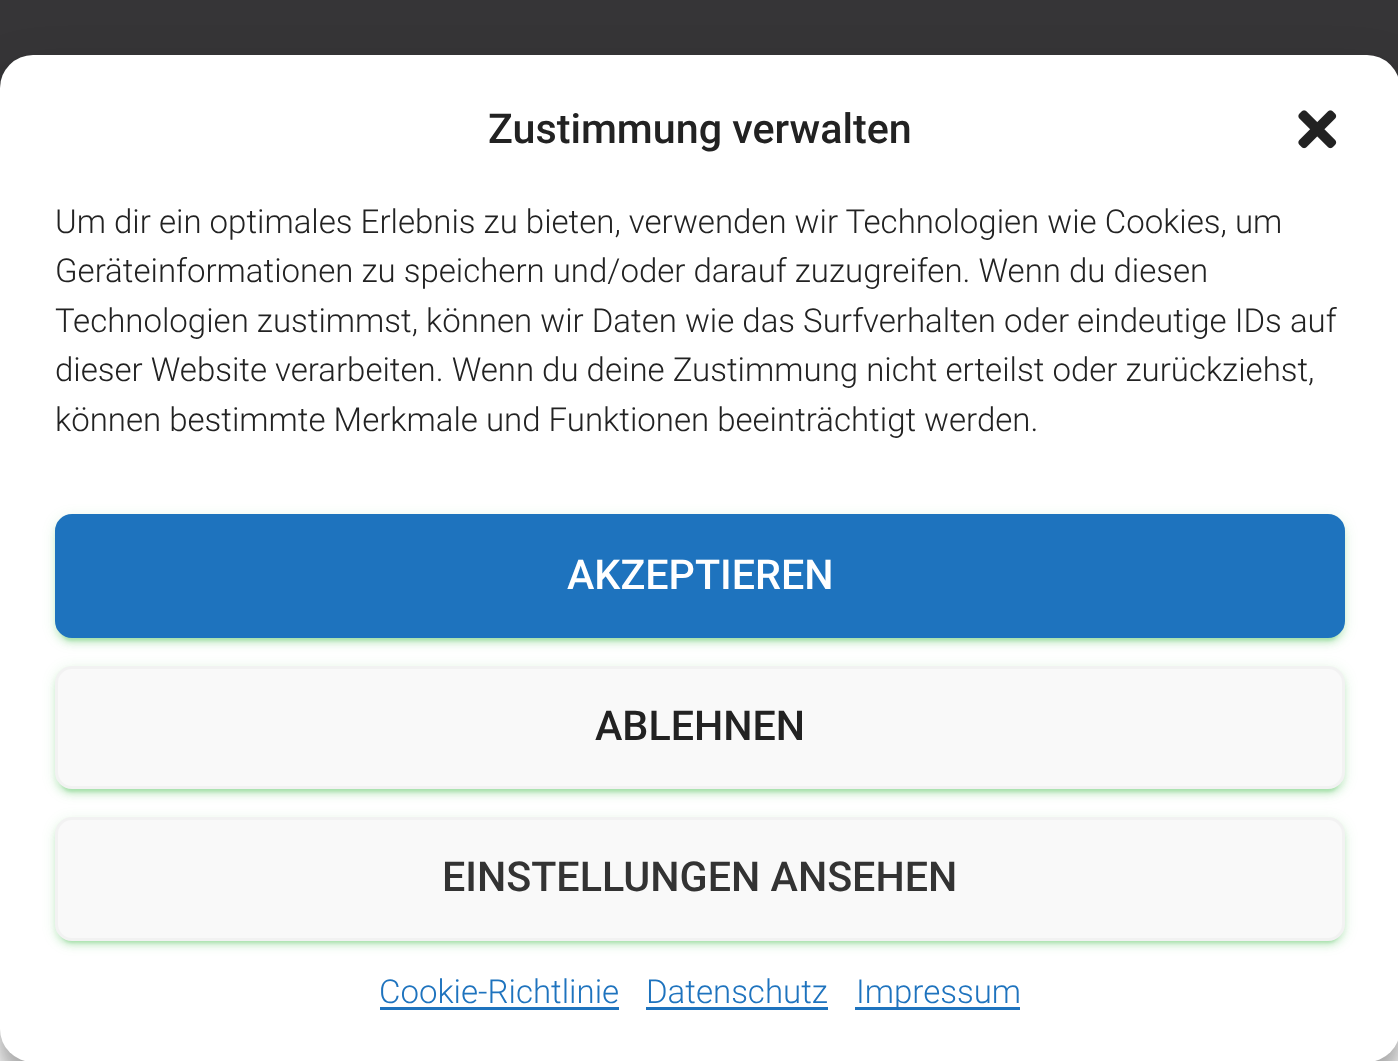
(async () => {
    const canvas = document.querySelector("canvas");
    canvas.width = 1398;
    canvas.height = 1061;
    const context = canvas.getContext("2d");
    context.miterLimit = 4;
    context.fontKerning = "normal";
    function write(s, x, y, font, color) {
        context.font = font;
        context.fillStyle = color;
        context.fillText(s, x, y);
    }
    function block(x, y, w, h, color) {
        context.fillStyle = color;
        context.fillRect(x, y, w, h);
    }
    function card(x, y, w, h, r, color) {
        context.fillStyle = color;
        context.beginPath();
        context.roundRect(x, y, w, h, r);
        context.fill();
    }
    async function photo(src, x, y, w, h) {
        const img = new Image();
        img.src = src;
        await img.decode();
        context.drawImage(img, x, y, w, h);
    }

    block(0, 0, 1398, 1061, "rgb(54, 53, 55)");
    block(0, 1029, 1398, 32, "rgb(255, 255, 255)");
    context.fillStyle = "rgba(0, 0, 0, 0.23)";
    context.filter = "blur(8px)";
    context.beginPath();
    context.roundRect(0, 72, 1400, 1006, 33);
    context.fill();
    context.filter = "none";
    context.fillStyle = "rgba(0, 0, 0, 0.19)";
    context.filter = "blur(27.5px)";
    context.beginPath();
    context.roundRect(0, 83, 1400, 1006, 33);
    context.fill();
    context.filter = "none";
    card(0, 55, 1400, 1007, 33, "rgb(255, 255, 255)");
    write("Zustimmung verwalten", 488, 143, "500 41.25px Roboto", "rgb(34, 34, 34)");
    await photo("media/1.png", 1298, 110, 39, 39);
    write("Um dir ein optimales Erlebnis zu bieten, verwenden wir Technologien wie Cookies, um", 55, 233, "300 33px Roboto", "rgb(34, 34, 34)");
    write("Geräteinformationen zu speichern und/oder darauf zuzugreifen. Wenn du diesen", 55, 282, "300 33px Roboto", "rgb(34, 34, 34)");
    write("Technologien zustimmst, können wir Daten wie das Surfverhalten oder eindeutige IDs auf", 55, 332, "300 33px Roboto", "rgb(34, 34, 34)");
    write("dieser Website verarbeiten. Wenn du deine Zustimmung nicht erteilst oder zurückziehst,", 55, 381, "300 33px Roboto", "rgb(34, 34, 34)");
    write("können bestimmte Merkmale und Funktionen beeinträchtigt werden.", 55, 431, "300 33px Roboto", "rgb(34, 34, 34)");
    context.fillStyle = "rgba(22, 175, 35, 0.12)";
    context.filter = "blur(7px)";
    context.beginPath();
    context.roundRect(55, 517, 1290, 124, 17);
    context.fill();
    context.filter = "none";
    context.fillStyle = "rgba(22, 175, 35, 0.2)";
    context.filter = "blur(1.5px)";
    context.beginPath();
    context.roundRect(61, 528, 1278, 113, 11);
    context.fill();
    context.filter = "none";
    context.fillStyle = "rgba(22, 175, 35, 0.14)";
    context.filter = "blur(3px)";
    context.beginPath();
    context.roundRect(55, 520, 1290, 124, 17);
    context.fill();
    context.filter = "none";
    context.fillStyle = "rgb(30, 115, 190)";
    context.beginPath();
    context.roundRect(56.5, 515.5, 1287, 121, 15.5);
    context.fill();
    context.strokeStyle = "rgb(30, 115, 190)";
    context.lineWidth = 3;
    context.stroke();
    write("AKZEPTIEREN", 567, 589, "500 41.25px Roboto", "rgb(255, 255, 255)");
    context.fillStyle = "rgba(22, 175, 35, 0.12)";
    context.filter = "blur(7px)";
    context.beginPath();
    context.roundRect(55, 668, 1290, 124, 17);
    context.fill();
    context.filter = "none";
    context.fillStyle = "rgba(22, 175, 35, 0.2)";
    context.filter = "blur(1.5px)";
    context.beginPath();
    context.roundRect(61, 679, 1278, 113, 11);
    context.fill();
    context.filter = "none";
    context.fillStyle = "rgba(22, 175, 35, 0.14)";
    context.filter = "blur(3px)";
    context.beginPath();
    context.roundRect(55, 671, 1290, 124, 17);
    context.fill();
    context.filter = "none";
    context.fillStyle = "rgb(249, 249, 249)";
    context.beginPath();
    context.roundRect(56.5, 667.5, 1287, 120, 15.5);
    context.fill();
    context.strokeStyle = "rgb(242, 242, 242)";
    context.stroke();
    write("ABLEHNEN", 595, 740, "500 41.25px Roboto", "rgb(34, 34, 34)");
    context.fillStyle = "rgba(22, 175, 35, 0.12)";
    context.filter = "blur(7px)";
    context.beginPath();
    context.roundRect(55, 820, 1290, 123, 17);
    context.fill();
    context.filter = "none";
    context.fillStyle = "rgba(22, 175, 35, 0.2)";
    context.filter = "blur(1.5px)";
    context.beginPath();
    context.roundRect(61, 831, 1278, 112, 11);
    context.fill();
    context.filter = "none";
    context.fillStyle = "rgba(22, 175, 35, 0.14)";
    context.filter = "blur(3px)";
    context.beginPath();
    context.roundRect(55, 822, 1290, 124, 17);
    context.fill();
    context.filter = "none";
    context.fillStyle = "rgb(249, 249, 249)";
    context.beginPath();
    context.roundRect(56.5, 818.5, 1287, 121, 15.5);
    context.fill();
    context.stroke();
    write("EINSTELLUNGEN ANSEHEN", 442, 891, "500 41.25px Roboto", "rgb(51, 51, 51)");
    write("Cookie-Richtlinie", 379, 1003, "300 33px Roboto", "rgb(30, 115, 190)");
    block(380, 1007, 239, 3, "rgb(30, 115, 190)");
    write("Datenschutz", 646, 1003, "300 33px Roboto", "rgb(30, 115, 190)");
    block(646, 1007, 182, 3, "rgb(30, 115, 190)");
    block(855, 1007, 165, 3, "rgb(30, 115, 190)");
    write("Impressum", 856, 1003, "300 33px Roboto", "rgb(30, 115, 190)");
})();
